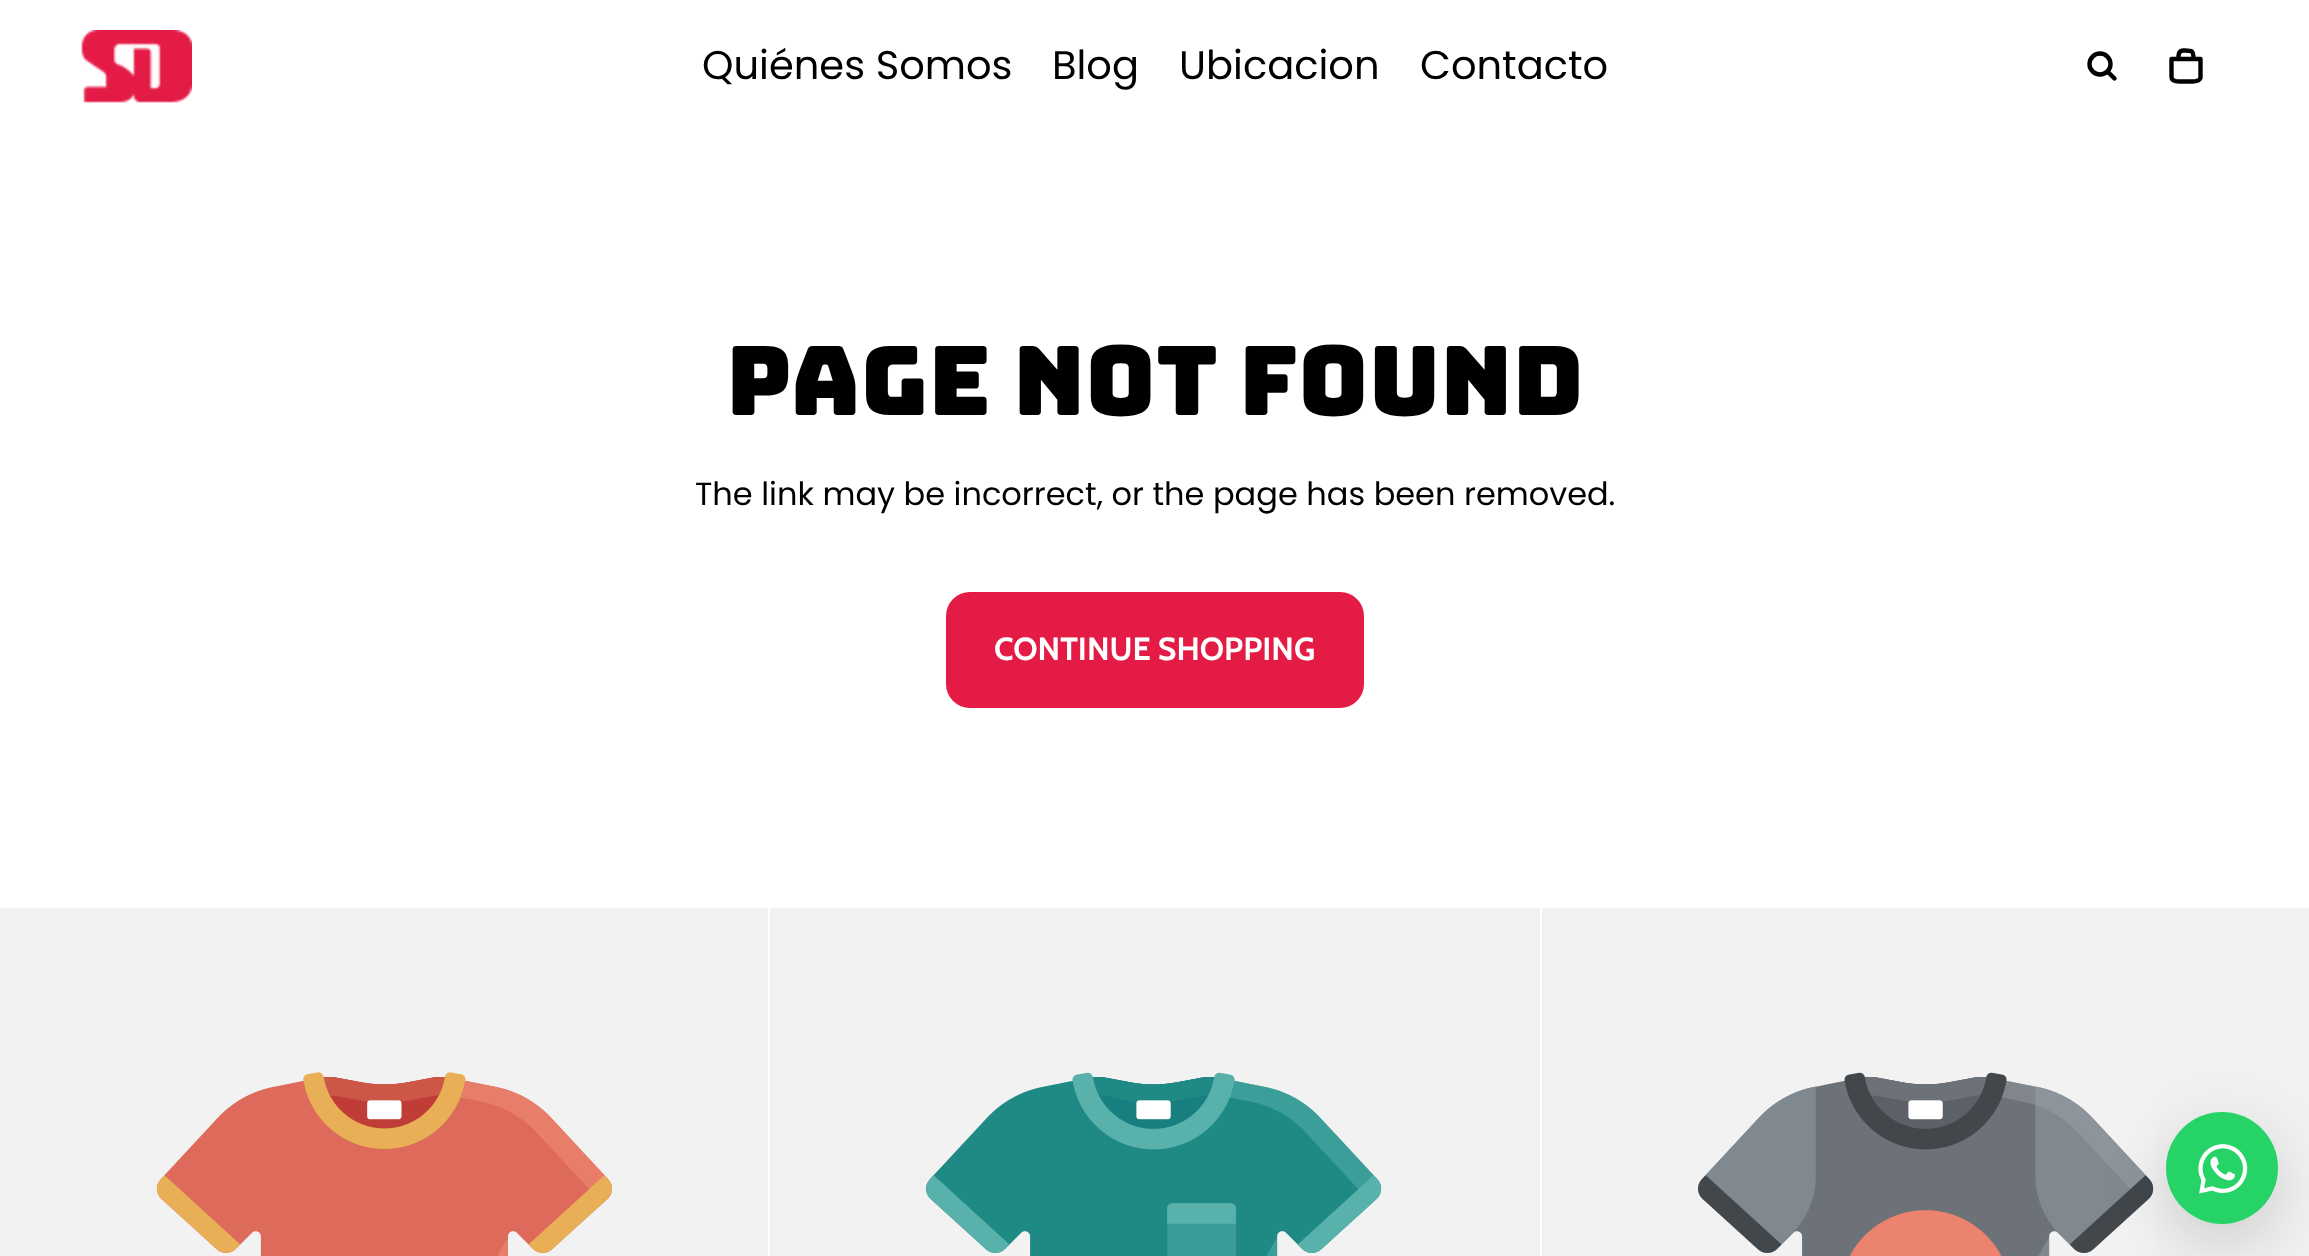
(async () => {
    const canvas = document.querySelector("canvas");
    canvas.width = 2309;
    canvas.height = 1256;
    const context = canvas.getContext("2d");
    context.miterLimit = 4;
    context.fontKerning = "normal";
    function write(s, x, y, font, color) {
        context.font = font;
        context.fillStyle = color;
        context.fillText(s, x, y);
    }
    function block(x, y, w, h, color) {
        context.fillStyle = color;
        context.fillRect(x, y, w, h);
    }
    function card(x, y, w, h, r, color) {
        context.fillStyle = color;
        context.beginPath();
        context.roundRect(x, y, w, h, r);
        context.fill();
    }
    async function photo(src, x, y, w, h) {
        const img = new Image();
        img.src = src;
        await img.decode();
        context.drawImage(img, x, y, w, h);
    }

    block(0, 0, 2309, 1256, "rgb(255, 255, 255)");
    await photo("media/1.png", 81, 30, 111, 73);
    write("Quiénes Somos", 702, 79, "40px Poppins", "rgb(0, 0, 0)");
    write("Blog", 1052, 79, "40px Poppins", "rgb(0, 0, 0)");
    write("Ubicacion", 1179, 79, "40px Poppins", "rgb(0, 0, 0)");
    write("Contacto", 1420, 79, "40px Poppins", "rgb(0, 0, 0)");
    context.beginPath();
    context.arc(2100, 64, 10.5, 0, Math.PI * 2);
    context.strokeStyle = "rgb(0, 0, 0)";
    context.lineWidth = 4.4;
    context.stroke();
    context.beginPath();
    context.moveTo(2107.5, 71.5);
    context.lineTo(2114.5, 78.5);
    context.lineCap = "round";
    context.lineJoin = "round";
    context.stroke();
    context.beginPath();
    context.moveTo(2171.5, 59);
    context.lineTo(2200.5, 59);
    context.lineTo(2200.5, 78);
    context.bezierCurveTo(2199, 81.5, 2195.5, 81.5, 2192.5, 81.5);
    context.lineTo(2179.5, 81.5);
    context.bezierCurveTo(2176, 81.5, 2171.5, 81.5, 2171.5, 77);
    context.closePath();
    context.moveTo(2183.5, 50.5);
    context.bezierCurveTo(2191.5, 50.5, 2193.5, 50, 2193.5, 59);
    context.lineTo(2178.5, 59);
    context.bezierCurveTo(2178.5, 55.5, 2178, 50.5, 2183.5, 50.5);
    context.stroke();
    write("PAGE NOT FOUND", 726, 415, "96px Bungee", "rgb(0, 0, 0)");
    write("The link may be incorrect, or the page has been removed.", 695, 505, "32px Poppins", "rgb(0, 0, 0)");
    card(946, 592, 418, 116, 24, "rgb(228, 27, 69)");
    write("CONTINUE SHOPPING", 994, 660, "bold 32px Cabin", "rgb(255, 255, 255)");
    block(0, 908, 768, 348, "rgb(241, 241, 241)");
    await photo("media/2.png", 156, 1072, 456, 184);
    block(770, 908, 770, 348, "rgb(241, 241, 241)");
    await photo("media/3.png", 926, 1072, 456, 184);
    block(1542, 908, 767, 348, "rgb(241, 241, 241)");
    await photo("media/4.png", 1698, 1072, 456, 184);
    context.fillStyle = "rgba(0, 0, 0, 0.15)";
    context.filter = "blur(30px)";
    context.beginPath();
    context.roundRect(2166, 1132, 112, 112, 56);
    context.fill();
    context.filter = "none";
    context.fillStyle = "rgb(37, 211, 102)";
    context.beginPath();
    context.arc(2222, 1168, 56, 0, Math.PI * 2);
    context.fill();
    await photo("media/5.png", 2198, 1144, 50, 50);
})();
